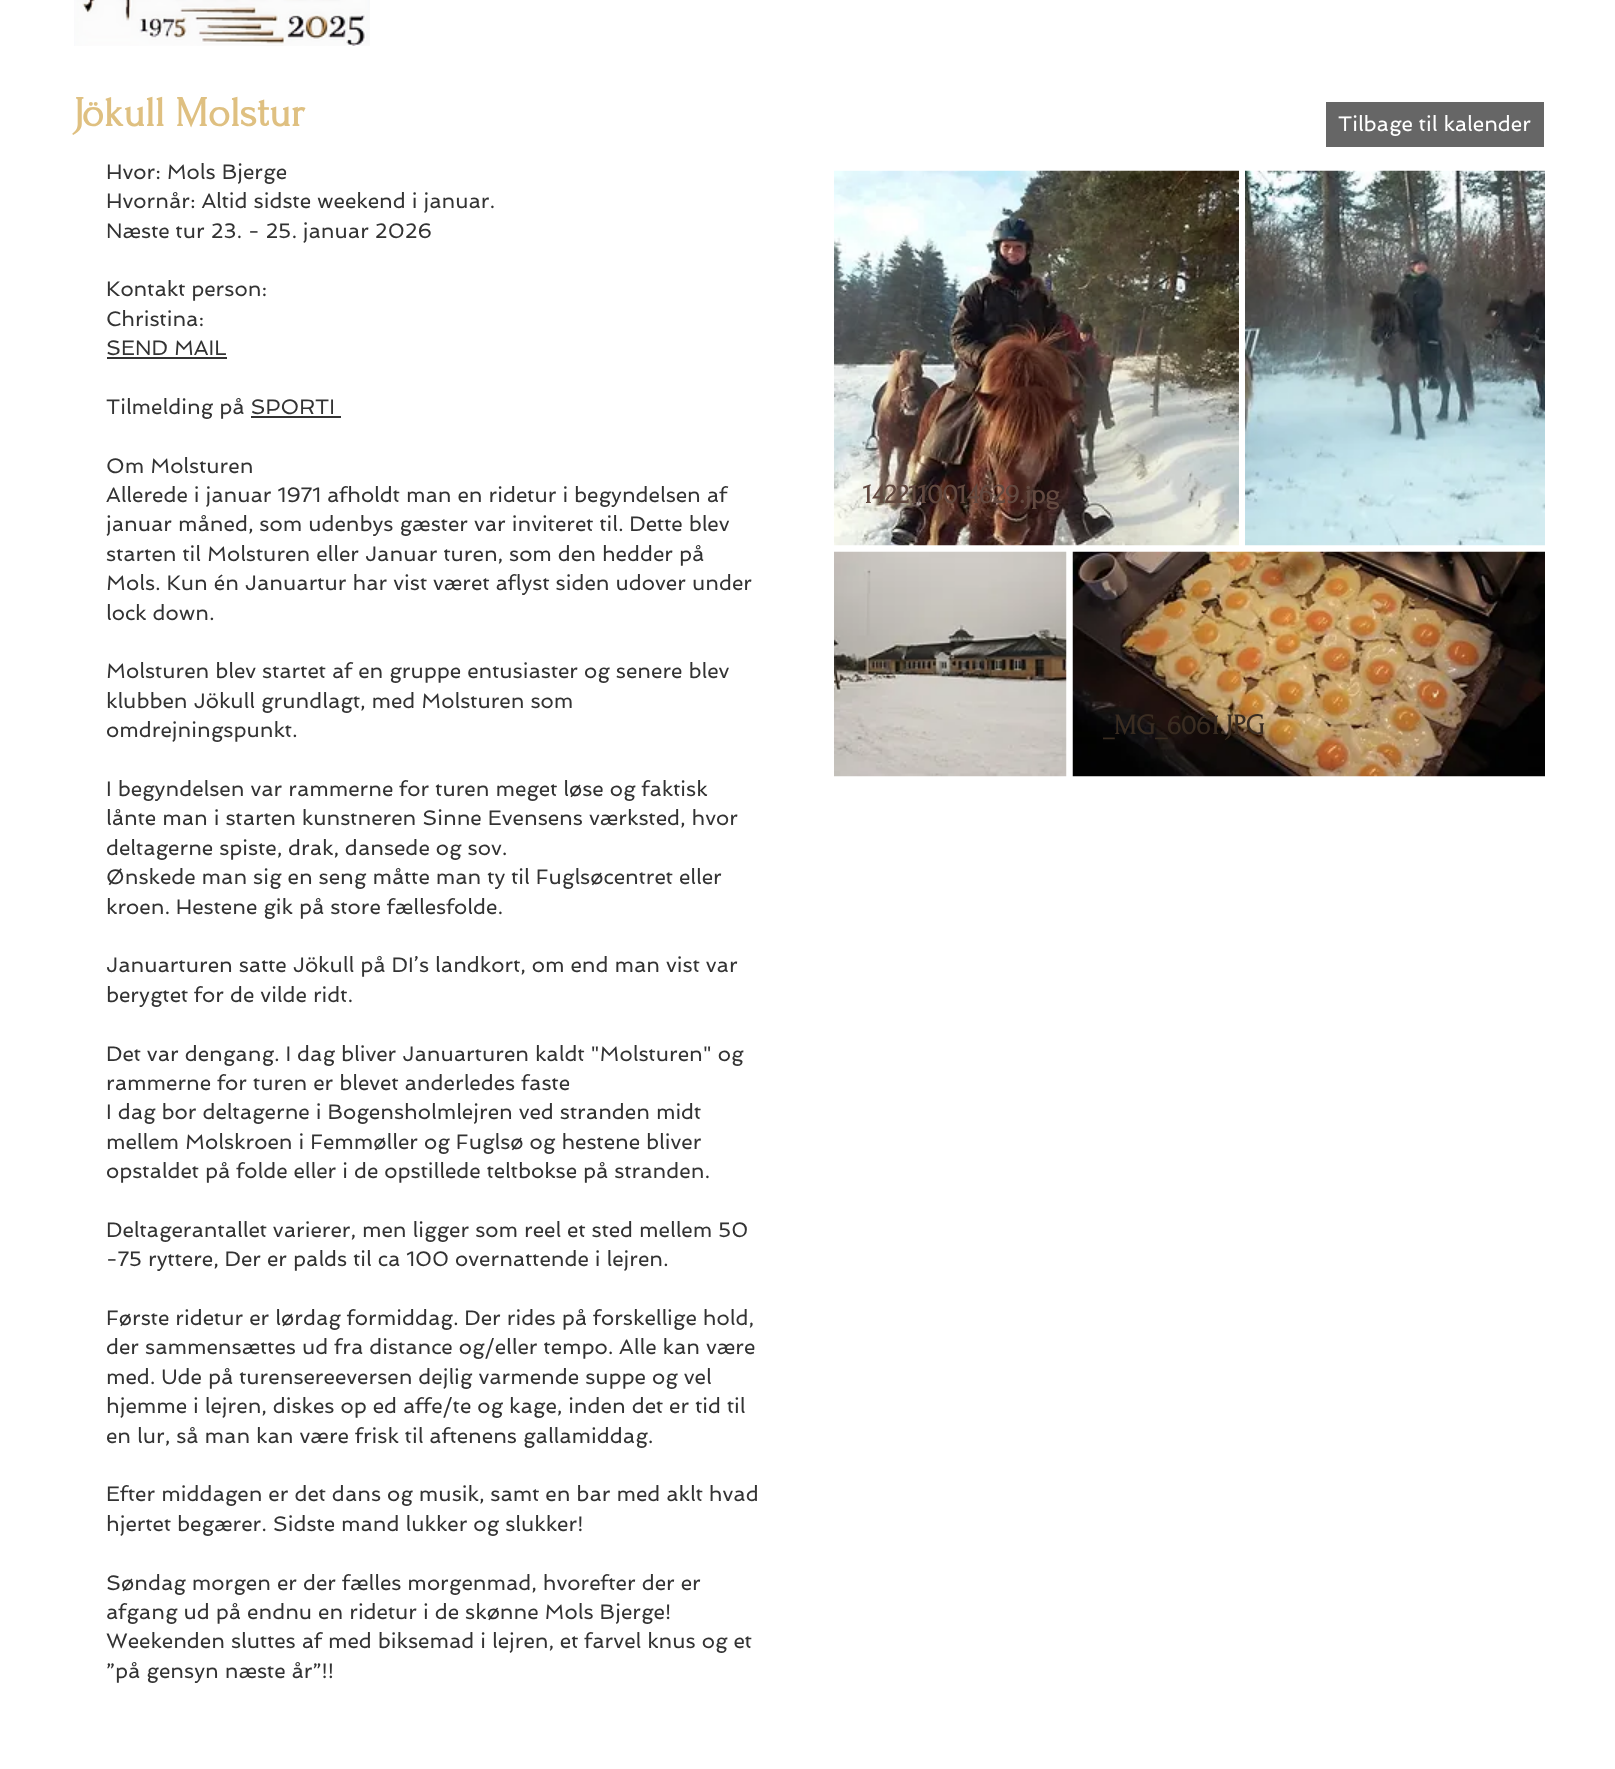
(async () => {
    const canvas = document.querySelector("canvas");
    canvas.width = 1615;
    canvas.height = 1769;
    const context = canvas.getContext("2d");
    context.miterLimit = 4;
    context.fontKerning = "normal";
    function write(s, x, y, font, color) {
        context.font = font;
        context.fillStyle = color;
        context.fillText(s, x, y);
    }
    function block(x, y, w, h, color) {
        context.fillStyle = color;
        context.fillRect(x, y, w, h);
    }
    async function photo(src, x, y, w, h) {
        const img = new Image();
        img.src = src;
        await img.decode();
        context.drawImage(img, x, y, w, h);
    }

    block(0, 0, 1615, 1769, "rgb(255, 255, 255)");
    await photo("media/1.png", 74, 0, 296, 46);
    write("Jökull Molstur", 73, 126, "bold 42px Forum", "rgb(223, 192, 129)");
    block(1326, 102, 218, 45, "rgb(102, 102, 102)");
    write("Tilbage til kalender", 1338, 131, "21px Spinnaker", "rgb(255, 255, 255)");
    write("Hvor: Mols Bjerge", 106, 179, "21px Spinnaker", "rgb(51, 51, 51)");
    write("Hvornår: Altid sidste weekend i januar.", 106, 208, "21px Spinnaker", "rgb(51, 51, 51)");
    write("Næste tur 23. - 25. januar 2026", 106, 238, "21px Spinnaker", "rgb(51, 51, 51)");
    write("Kontakt person:", 106, 296, "21px Spinnaker", "rgb(51, 51, 51)");
    write("Christina:", 106, 326, "21px Spinnaker", "rgb(51, 51, 51)");
    write("SEND MAIL", 106, 355, "21px Spinnaker", "rgb(51, 51, 51)");
    block(107, 357, 120, 2, "rgb(51, 51, 51)");
    write("Tilmelding på SPORTI", 106, 414, "21px Spinnaker", "rgb(51, 51, 51)");
    block(251, 416, 90, 2, "rgb(51, 51, 51)");
    write("Om Molsturen", 106, 473, "21px Spinnaker", "rgb(51, 51, 51)");
    write("Allerede i januar 1971 afholdt man en ridetur i begyndelsen af", 106, 502, "21px Spinnaker", "rgb(51, 51, 51)");
    write("januar måned, som udenbys gæster var inviteret til. Dette blev", 106, 531, "21px Spinnaker", "rgb(51, 51, 51)");
    write("starten til Molsturen eller Januar turen, som den hedder på", 106, 561, "21px Spinnaker", "rgb(51, 51, 51)");
    write("Mols. Kun én Januartur har vist været aflyst siden udover under", 106, 590, "21px Spinnaker", "rgb(51, 51, 51)");
    write("lock down.", 106, 620, "21px Spinnaker", "rgb(51, 51, 51)");
    write("Molsturen blev startet af en gruppe entusiaster og senere blev", 106, 678, "21px Spinnaker", "rgb(51, 51, 51)");
    write("klubben Jökull grundlagt, med Molsturen som", 106, 708, "21px Spinnaker", "rgb(51, 51, 51)");
    write("omdrejningspunkt.", 106, 737, "21px Spinnaker", "rgb(51, 51, 51)");
    write("I begyndelsen var rammerne for turen meget løse og faktisk", 106, 796, "21px Spinnaker", "rgb(51, 51, 51)");
    write("lånte man i starten kunstneren Sinne Evensens værksted, hvor", 106, 825, "21px Spinnaker", "rgb(51, 51, 51)");
    write("deltagerne spiste, drak, dansede og sov.", 106, 855, "21px Spinnaker", "rgb(51, 51, 51)");
    write("Ønskede man sig en seng måtte man ty til Fuglsøcentret eller", 106, 884, "21px Spinnaker", "rgb(51, 51, 51)");
    write("kroen. Hestene gik på store fællesfolde.", 106, 914, "21px Spinnaker", "rgb(51, 51, 51)");
    write("Januarturen satte Jökull på DI’s landkort, om end man vist var", 106, 972, "21px Spinnaker", "rgb(51, 51, 51)");
    write("berygtet for de vilde ridt.", 106, 1002, "21px Spinnaker", "rgb(51, 51, 51)");
    write("Det var dengang. I dag bliver Januarturen kaldt \"Molsturen\" og", 106, 1061, "21px Spinnaker", "rgb(51, 51, 51)");
    write("rammerne for turen er blevet anderledes faste", 106, 1090, "21px Spinnaker", "rgb(51, 51, 51)");
    write("I dag bor deltagerne i Bogensholmlejren ved stranden midt", 106, 1119, "21px Spinnaker", "rgb(51, 51, 51)");
    write("mellem Molskroen i Femmøller og Fuglsø og hestene bliver", 106, 1149, "21px Spinnaker", "rgb(51, 51, 51)");
    write("opstaldet på folde eller i de opstillede teltbokse på stranden.", 106, 1178, "21px Spinnaker", "rgb(51, 51, 51)");
    write("Deltagerantallet varierer, men ligger som reel et sted mellem 50", 106, 1237, "21px Spinnaker", "rgb(51, 51, 51)");
    write("-75 ryttere, Der er palds til ca 100 overnattende i lejren.", 106, 1266, "21px Spinnaker", "rgb(51, 51, 51)");
    write("Første ridetur er lørdag formiddag. Der rides på forskellige hold,", 106, 1325, "21px Spinnaker", "rgb(51, 51, 51)");
    write("der sammensættes ud fra distance og/eller tempo. Alle kan være", 106, 1354, "21px Spinnaker", "rgb(51, 51, 51)");
    write("med. Ude på turensereeversen dejlig varmende suppe og vel", 106, 1384, "21px Spinnaker", "rgb(51, 51, 51)");
    write("hjemme i lejren, diskes op ed affe/te og kage, inden det er tid til", 106, 1413, "21px Spinnaker", "rgb(51, 51, 51)");
    write("en lur, så man kan være frisk til aftenens gallamiddag.", 106, 1443, "21px Spinnaker", "rgb(51, 51, 51)");
    write("Efter middagen er det dans og musik, samt en bar med aklt hvad", 106, 1501, "21px Spinnaker", "rgb(51, 51, 51)");
    write("hjertet begærer. Sidste mand lukker og slukker!", 106, 1531, "21px Spinnaker", "rgb(51, 51, 51)");
    write("Søndag morgen er der fælles morgenmad, hvorefter der er", 106, 1590, "21px Spinnaker", "rgb(51, 51, 51)");
    write("afgang ud på endnu en ridetur i de skønne Mols Bjerge!", 106, 1619, "21px Spinnaker", "rgb(51, 51, 51)");
    write("Weekenden sluttes af med biksemad i lejren, et farvel knus og et", 106, 1648, "21px Spinnaker", "rgb(51, 51, 51)");
    write("”på gensyn næste år”!!", 106, 1678, "21px Spinnaker", "rgb(51, 51, 51)");
    await photo("media/2.png", 834, 170, 405, 376);
    write("1422110014629.jpg", 863, 503, "bold 28.5px Forum", "rgb(98, 73, 64)");
    await photo("media/3.png", 1245, 170, 300, 376);
    await photo("media/4.png", 834, 551, 233, 226);
    await photo("media/5.png", 1072, 551, 473, 226);
    context.save();
    context.beginPath();
    context.rect(1103, 708, 162, 39);
    context.clip();
    write("_MG_6061.JPG", 1102, 734, "bold 28.5px Forum", "rgb(57, 44, 33)");
    context.restore();
})();
